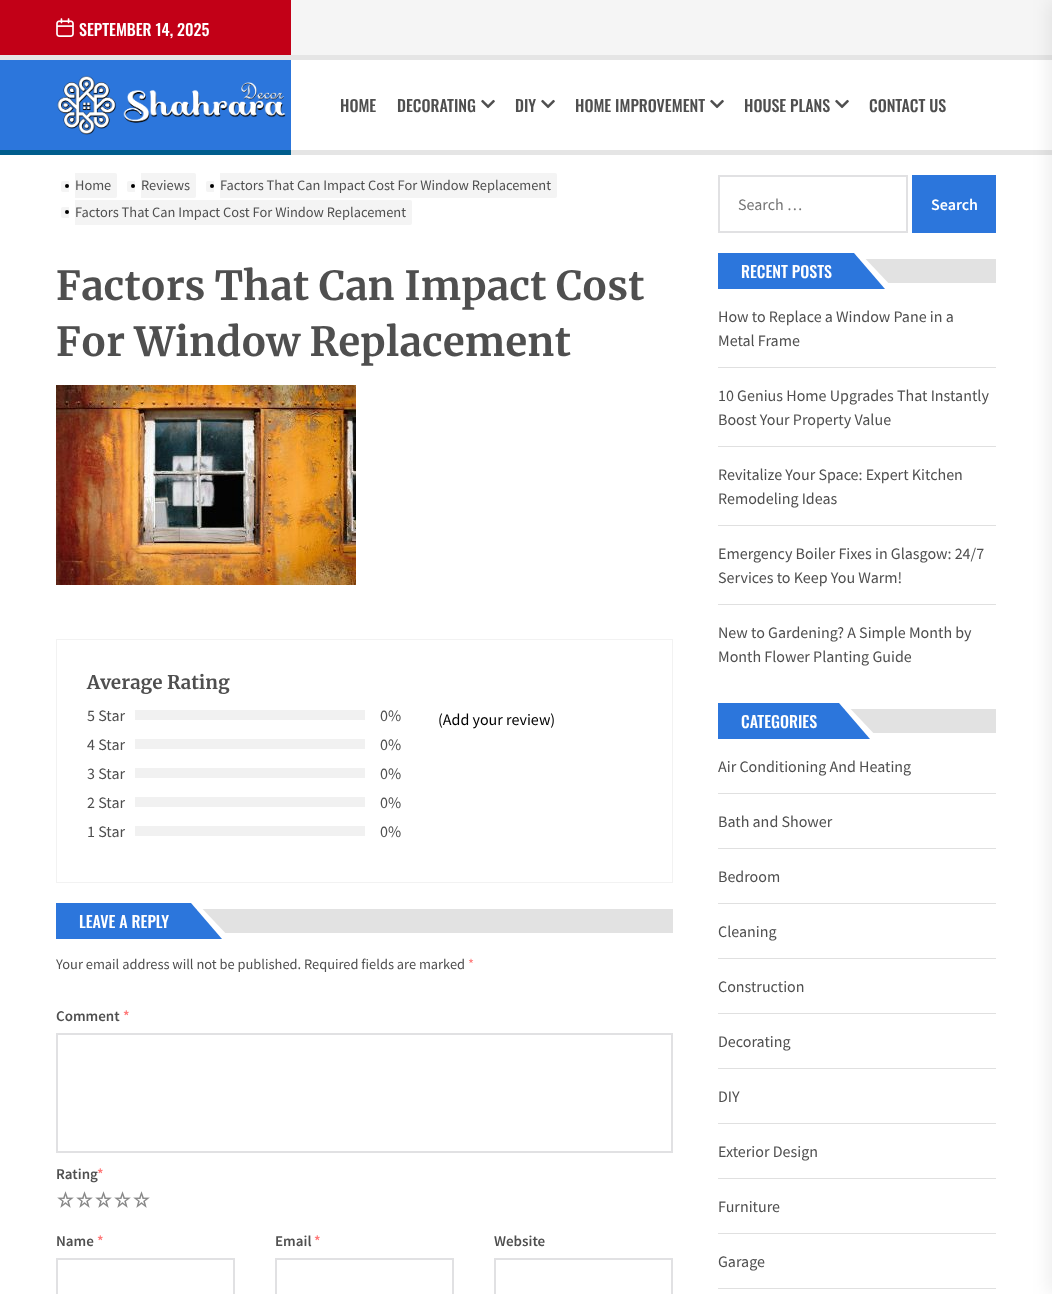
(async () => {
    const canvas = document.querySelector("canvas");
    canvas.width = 1052;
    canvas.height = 1294;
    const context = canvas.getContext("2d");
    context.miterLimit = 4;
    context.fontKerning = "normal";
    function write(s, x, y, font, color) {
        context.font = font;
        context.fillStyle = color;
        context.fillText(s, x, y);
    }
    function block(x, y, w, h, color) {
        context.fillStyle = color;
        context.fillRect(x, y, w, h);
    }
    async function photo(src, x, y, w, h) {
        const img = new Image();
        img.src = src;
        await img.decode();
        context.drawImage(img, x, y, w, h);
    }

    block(0, 0, 1052, 1294, "rgb(255, 255, 255)");
    block(291, 0, 761, 55, "rgb(245, 245, 245)");
    block(0, 0, 291, 55, "rgb(194, 0, 23)");
    await photo("media/1.png", 56, 18, 18, 19);
    write("SEPTEMBER 14, 2025", 79, 36, "500 16px Oswald", "rgb(255, 255, 255)");
    block(0, 55, 1052, 5, "rgb(229, 229, 229)");
    block(291, 150, 761, 5, "rgb(229, 229, 229)");
    block(0, 150, 291, 5, "rgb(0, 93, 141)");
    block(0, 60, 291, 90, "rgb(44, 118, 220)");
    await photo("media/2.png", 57, 75, 229, 60);
    write("HOME", 340, 112, "500 16px Oswald", "rgb(79, 79, 79)");
    write("DECORATING", 397, 112, "500 16px Oswald", "rgb(79, 79, 79)");
    await photo("media/3.png", 481, 99, 14, 10);
    write("DIY", 515, 112, "500 16px Oswald", "rgb(79, 79, 79)");
    await photo("media/3.png", 541, 99, 14, 10);
    write("HOME IMPROVEMENT", 575, 112, "500 16px Oswald", "rgb(79, 79, 79)");
    await photo("media/3.png", 710, 99, 14, 10);
    write("HOUSE PLANS", 744, 112, "500 16px Oswald", "rgb(79, 79, 79)");
    await photo("media/3.png", 835, 99, 14, 10);
    write("CONTACT US", 869, 112, "500 16px Oswald", "rgb(79, 79, 79)");
    context.fillStyle = "rgba(0, 0, 0, 0.1)";
    context.filter = "blur(10px)";
    context.beginPath();
    context.rect(1052, 0, 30, 1294);
    context.fill();
    context.filter = "none";
    context.fillStyle = "rgb(244, 244, 244)";
    context.beginPath();
    context.roundRect(61, 181, 8, 11, [2, 0, 0, 2]);
    context.fill();
    context.beginPath();
    context.roundRect(75, 173, 42, 25, [0, 2, 2, 0]);
    context.fill();
    context.fillStyle = "rgb(0, 0, 0)";
    context.beginPath();
    context.arc(67, 186, 2, 0, Math.PI * 2);
    context.fill();
    write("Home", 75, 190, "14.4px Source Sans Pro", "rgb(79, 79, 79)");
    context.fillStyle = "rgb(244, 244, 244)";
    context.beginPath();
    context.roundRect(127, 181, 8, 11, [2, 0, 0, 2]);
    context.fill();
    context.beginPath();
    context.roundRect(141, 173, 55, 25, [0, 2, 2, 0]);
    context.fill();
    context.fillStyle = "rgb(0, 0, 0)";
    context.beginPath();
    context.arc(133, 186, 2, 0, Math.PI * 2);
    context.fill();
    write("Reviews", 141, 190, "14.4px Source Sans Pro", "rgb(79, 79, 79)");
    context.fillStyle = "rgb(244, 244, 244)";
    context.beginPath();
    context.roundRect(206, 181, 8, 11, [2, 0, 0, 2]);
    context.fill();
    context.beginPath();
    context.roundRect(220, 173, 337, 25, [0, 2, 2, 0]);
    context.fill();
    context.fillStyle = "rgb(0, 0, 0)";
    context.beginPath();
    context.arc(212, 186, 2, 0, Math.PI * 2);
    context.fill();
    write("Factors That Can Impact Cost For Window Replacement", 220, 190, "14.4px Source Sans Pro", "rgb(79, 79, 79)");
    context.fillStyle = "rgb(244, 244, 244)";
    context.beginPath();
    context.roundRect(61, 207, 8, 11, [2, 0, 0, 2]);
    context.fill();
    context.beginPath();
    context.roundRect(75, 200, 337, 25, [0, 2, 2, 0]);
    context.fill();
    context.fillStyle = "rgb(0, 0, 0)";
    context.beginPath();
    context.arc(67, 212, 2, 0, Math.PI * 2);
    context.fill();
    write("Factors That Can Impact Cost For Window Replacement", 75, 217, "14.4px Source Sans Pro", "rgb(79, 79, 79)");
    write("Factors That Can Impact Cost", 56, 300, "bold 40px Merriweather", "rgb(79, 79, 79)");
    write("For Window Replacement", 56, 356, "bold 40px Merriweather", "rgb(79, 79, 79)");
    await photo("media/4.png", 56, 385, 300, 200);
    context.strokeStyle = "rgb(242, 242, 242)";
    context.strokeRect(56.5, 639.5, 616, 243);
    write("Average Rating", 87, 689, "bold 18.75px Merriweather", "rgb(79, 79, 79)");
    write("5 Star", 87, 721, "16px Source Sans Pro", "rgb(79, 79, 79)");
    block(135, 710, 230, 10, "rgb(241, 241, 241)");
    write("0%", 380, 721, "16px Source Sans Pro", "rgb(79, 79, 79)");
    write("4 Star", 87, 750, "16px Source Sans Pro", "rgb(79, 79, 79)");
    block(135, 739, 230, 10, "rgb(241, 241, 241)");
    write("0%", 380, 750, "16px Source Sans Pro", "rgb(79, 79, 79)");
    write("3 Star", 87, 779, "16px Source Sans Pro", "rgb(79, 79, 79)");
    block(135, 768, 230, 10, "rgb(241, 241, 241)");
    write("0%", 380, 779, "16px Source Sans Pro", "rgb(79, 79, 79)");
    write("2 Star", 87, 808, "16px Source Sans Pro", "rgb(79, 79, 79)");
    block(135, 797, 230, 10, "rgb(241, 241, 241)");
    write("0%", 380, 808, "16px Source Sans Pro", "rgb(79, 79, 79)");
    write("1 Star", 87, 837, "16px Source Sans Pro", "rgb(79, 79, 79)");
    block(135, 826, 230, 10, "rgb(241, 241, 241)");
    write("0%", 380, 837, "16px Source Sans Pro", "rgb(79, 79, 79)");
    write("(Add your review)", 438, 725, "16px Source Sans Pro", "rgb(0, 0, 0)");
    block(56, 903, 135, 36, "rgb(44, 118, 220)");
    block(196, 909, 477, 24, "rgb(226, 226, 226)");
    context.fillStyle = "rgb(255, 255, 255)";
    context.beginPath();
    context.moveTo(197, 939);
    context.lineTo(197, 903);
    context.lineTo(231, 939);
    context.closePath();
    context.fill();
    context.fillStyle = "rgb(44, 118, 220)";
    context.beginPath();
    context.moveTo(191, 939);
    context.lineTo(191, 903);
    context.lineTo(222, 939);
    context.closePath();
    context.fill();
    write("LEAVE A REPLY", 79, 928, "500 16px Oswald", "rgb(255, 255, 255)");
    write("Your email address will not be published. Required fields are marked", 56, 969, "14.4px Source Sans Pro", "rgb(79, 79, 79)");
    write("*", 468, 969, "14.4px Source Sans Pro", "rgb(255, 121, 121)");
    write("Comment", 56, 1021, "600 15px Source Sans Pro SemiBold", "rgb(79, 79, 79)");
    write("*", 123, 1021, "600 15px Source Sans Pro SemiBold", "rgb(255, 121, 121)");
    context.strokeStyle = "rgb(225, 225, 227)";
    context.lineWidth = 2;
    context.strokeRect(57, 1034, 615, 118);
    write("Rating", 56, 1179, "600 15px Source Sans Pro SemiBold", "rgb(79, 79, 79)");
    write("*", 97, 1179, "600 15px Source Sans Pro SemiBold", "rgb(255, 121, 121)");
    await photo("media/5.png", 57, 1191, 17, 17);
    await photo("media/5.png", 76, 1191, 17, 17);
    await photo("media/5.png", 95, 1191, 17, 17);
    await photo("media/5.png", 114, 1191, 17, 17);
    await photo("media/5.png", 133, 1191, 17, 17);
    write("Name", 56, 1246, "600 15px Source Sans Pro SemiBold", "rgb(79, 79, 79)");
    write("*", 97, 1246, "600 15px Source Sans Pro SemiBold", "rgb(255, 121, 121)");
    context.strokeRect(57, 1259, 177, 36);
    write("Email", 275, 1246, "600 15px Source Sans Pro SemiBold", "rgb(79, 79, 79)");
    write("*", 314, 1246, "600 15px Source Sans Pro SemiBold", "rgb(255, 121, 121)");
    context.strokeRect(276, 1259, 177, 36);
    write("Website", 494, 1246, "600 15px Source Sans Pro SemiBold", "rgb(79, 79, 79)");
    context.strokeRect(495, 1259, 177, 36);
    context.strokeRect(719, 176, 188, 56);
    write("Search …", 738, 210, "16px Source Sans Pro", "rgb(117, 117, 117)");
    block(912, 175, 84, 58, "rgb(44, 118, 220)");
    write("Search", 931, 210, "600 16px Source Sans Pro SemiBold", "rgb(255, 255, 255)");
    block(718, 253, 136, 36, "rgb(44, 118, 220)");
    block(859, 259, 137, 24, "rgb(226, 226, 226)");
    context.fillStyle = "rgb(255, 255, 255)";
    context.beginPath();
    context.moveTo(860, 289);
    context.lineTo(860, 253);
    context.lineTo(894, 289);
    context.closePath();
    context.fill();
    context.fillStyle = "rgb(44, 118, 220)";
    context.beginPath();
    context.moveTo(854, 289);
    context.lineTo(854, 253);
    context.lineTo(885, 289);
    context.closePath();
    context.fill();
    write("RECENT POSTS", 741, 278, "500 16px Oswald", "rgb(255, 255, 255)");
    block(718, 367, 278, 1, "rgb(224, 224, 224)");
    write("How to Replace a Window Pane in a", 718, 322, "16px Source Sans Pro", "rgb(79, 79, 79)");
    write("Metal Frame", 718, 346, "16px Source Sans Pro", "rgb(79, 79, 79)");
    block(718, 446, 278, 1, "rgb(224, 224, 224)");
    write("10 Genius Home Upgrades That Instantly", 718, 401, "16px Source Sans Pro", "rgb(79, 79, 79)");
    write("Boost Your Property Value", 718, 425, "16px Source Sans Pro", "rgb(79, 79, 79)");
    block(718, 525, 278, 1, "rgb(224, 224, 224)");
    write("Revitalize Your Space: Expert Kitchen", 718, 480, "16px Source Sans Pro", "rgb(79, 79, 79)");
    write("Remodeling Ideas", 718, 504, "16px Source Sans Pro", "rgb(79, 79, 79)");
    block(718, 604, 278, 1, "rgb(224, 224, 224)");
    write("Emergency Boiler Fixes in Glasgow: 24/7", 718, 559, "16px Source Sans Pro", "rgb(79, 79, 79)");
    write("Services to Keep You Warm!", 718, 583, "16px Source Sans Pro", "rgb(79, 79, 79)");
    write("New to Gardening? A Simple Month by", 718, 638, "16px Source Sans Pro", "rgb(79, 79, 79)");
    write("Month Flower Planting Guide", 718, 662, "16px Source Sans Pro", "rgb(79, 79, 79)");
    block(718, 703, 121, 36, "rgb(44, 118, 220)");
    block(844, 709, 152, 24, "rgb(226, 226, 226)");
    context.fillStyle = "rgb(255, 255, 255)";
    context.beginPath();
    context.moveTo(845, 739);
    context.lineTo(845, 703);
    context.lineTo(879, 739);
    context.closePath();
    context.fill();
    context.fillStyle = "rgb(44, 118, 220)";
    context.beginPath();
    context.moveTo(839, 739);
    context.lineTo(839, 703);
    context.lineTo(870, 739);
    context.closePath();
    context.fill();
    write("CATEGORIES", 741, 728, "500 16px Oswald", "rgb(255, 255, 255)");
    block(718, 793, 278, 1, "rgb(224, 224, 224)");
    write("Air Conditioning And Heating", 718, 772, "16px Source Sans Pro", "rgb(79, 79, 79)");
    block(718, 848, 278, 1, "rgb(224, 224, 224)");
    write("Bath and Shower", 718, 827, "16px Source Sans Pro", "rgb(79, 79, 79)");
    block(718, 903, 278, 1, "rgb(224, 224, 224)");
    write("Bedroom", 718, 882, "16px Source Sans Pro", "rgb(79, 79, 79)");
    block(718, 958, 278, 1, "rgb(224, 224, 224)");
    write("Cleaning", 718, 937, "16px Source Sans Pro", "rgb(79, 79, 79)");
    block(718, 1013, 278, 1, "rgb(224, 224, 224)");
    write("Construction", 718, 992, "16px Source Sans Pro", "rgb(79, 79, 79)");
    block(718, 1068, 278, 1, "rgb(224, 224, 224)");
    write("Decorating", 718, 1047, "16px Source Sans Pro", "rgb(79, 79, 79)");
    block(718, 1123, 278, 1, "rgb(224, 224, 224)");
    write("DIY", 718, 1102, "16px Source Sans Pro", "rgb(79, 79, 79)");
    block(718, 1178, 278, 1, "rgb(224, 224, 224)");
    write("Exterior Design", 718, 1157, "16px Source Sans Pro", "rgb(79, 79, 79)");
    block(718, 1233, 278, 1, "rgb(224, 224, 224)");
    write("Furniture", 718, 1212, "16px Source Sans Pro", "rgb(79, 79, 79)");
    block(718, 1288, 278, 1, "rgb(224, 224, 224)");
    write("Garage", 718, 1267, "16px Source Sans Pro", "rgb(79, 79, 79)");
})();
